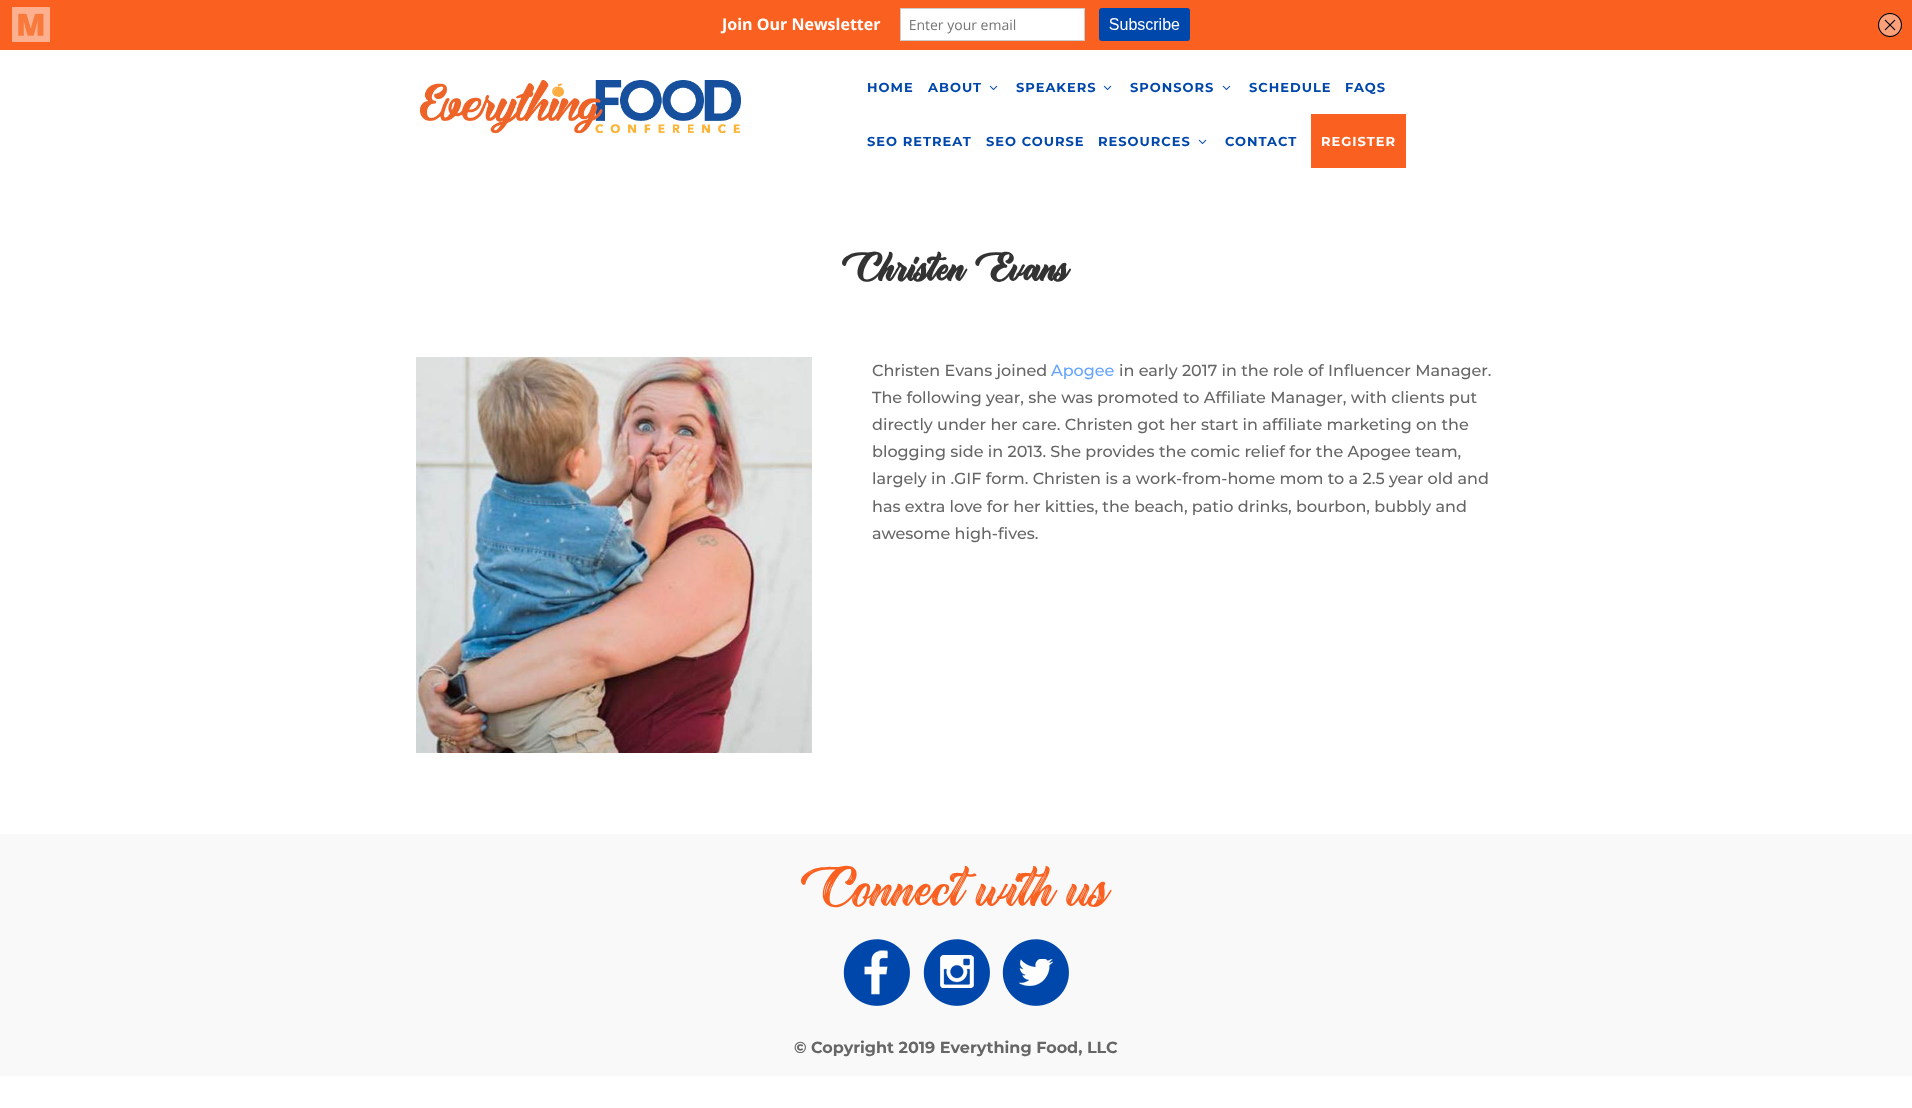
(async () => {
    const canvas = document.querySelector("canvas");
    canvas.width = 1912;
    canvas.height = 1108;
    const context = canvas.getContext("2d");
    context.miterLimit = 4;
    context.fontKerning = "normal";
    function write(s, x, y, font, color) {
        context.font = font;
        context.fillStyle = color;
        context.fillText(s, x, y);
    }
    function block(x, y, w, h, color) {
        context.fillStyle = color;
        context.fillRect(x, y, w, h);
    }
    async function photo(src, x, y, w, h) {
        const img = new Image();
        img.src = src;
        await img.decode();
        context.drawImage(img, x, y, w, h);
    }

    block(0, 0, 1912, 1108, "rgb(255, 255, 255)");
    await photo("media/1.png", 0, 0, 1912, 50);
    await photo("media/2.png", 420, 80, 321, 54);
    context.letterSpacing = "1px";
    write("HOME", 867, 92, "bold 13px Montserrat", "rgb(0, 71, 171)");
    write("ABOUT", 928, 92, "bold 13px Montserrat", "rgb(0, 71, 171)");
    await photo("media/3.png", 989, 85, 9, 5);
    write("SPEAKERS", 1016, 92, "bold 13px Montserrat", "rgb(0, 71, 171)");
    await photo("media/3.png", 1103, 85, 9, 5);
    write("SPONSORS", 1130, 92, "bold 13px Montserrat", "rgb(0, 71, 171)");
    await photo("media/3.png", 1222, 85, 9, 5);
    write("SCHEDULE", 1249, 92, "bold 13px Montserrat", "rgb(0, 71, 171)");
    write("FAQS", 1345, 92, "bold 13px Montserrat", "rgb(0, 71, 171)");
    write("SEO RETREAT", 867, 146, "bold 13px Montserrat", "rgb(0, 71, 171)");
    write("SEO COURSE", 986, 146, "bold 13px Montserrat", "rgb(0, 71, 171)");
    write("RESOURCES", 1098, 146, "bold 13px Montserrat", "rgb(0, 71, 171)");
    await photo("media/3.png", 1198, 139, 9, 5);
    write("CONTACT", 1225, 146, "bold 13px Montserrat", "rgb(0, 71, 171)");
    block(1311, 114, 95, 54, "rgb(250, 97, 33)");
    write("REGISTER", 1321, 146, "bold 13px Montserrat", "rgb(255, 255, 255)");
    context.letterSpacing = "0px";
    write("Christen Evans", 842, 281, "bold 32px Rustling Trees", "rgb(51, 51, 51)");
    await photo("media/4.png", 416, 357, 396, 396);
    write("Christen Evans joined", 872, 376, "500 16px Montserrat", "rgb(102, 102, 102)");
    write("Apogee", 1051, 376, "500 16px Montserrat", "rgb(102, 165, 255)");
    write("in early 2017 in the role of Influencer Manager.", 1119, 376, "500 16px Montserrat", "rgb(102, 102, 102)");
    write("The following year, she was promoted to Affiliate Manager, with clients put", 872, 403, "500 16px Montserrat", "rgb(102, 102, 102)");
    write("directly under her care. Christen got her start in affiliate marketing on the", 872, 430, "500 16px Montserrat", "rgb(102, 102, 102)");
    write("blogging side in 2013. She provides the comic relief for the Apogee team,", 872, 457, "500 16px Montserrat", "rgb(102, 102, 102)");
    write("largely in .GIF form. Christen is a work-from-home mom to a 2.5 year old and", 872, 484, "500 16px Montserrat", "rgb(102, 102, 102)");
    write("has extra love for her kitties, the beach, patio drinks, bourbon, bubbly and", 872, 512, "500 16px Montserrat", "rgb(102, 102, 102)");
    write("awesome high-fives.", 872, 539, "500 16px Montserrat", "rgb(102, 102, 102)");
    block(0, 834, 1912, 242, "rgb(249, 249, 249)");
    write("Connect with us", 801, 906, "45px Rustling Trees", "rgb(250, 97, 33)");
    await photo("media/5.png", 843, 939, 67, 67);
    await photo("media/6.png", 923, 939, 67, 67);
    await photo("media/7.png", 1002, 939, 67, 67);
    write("© Copyright 2019 Everything Food, LLC", 794, 1053, "bold 16px Montserrat", "rgb(102, 102, 102)");
})();
